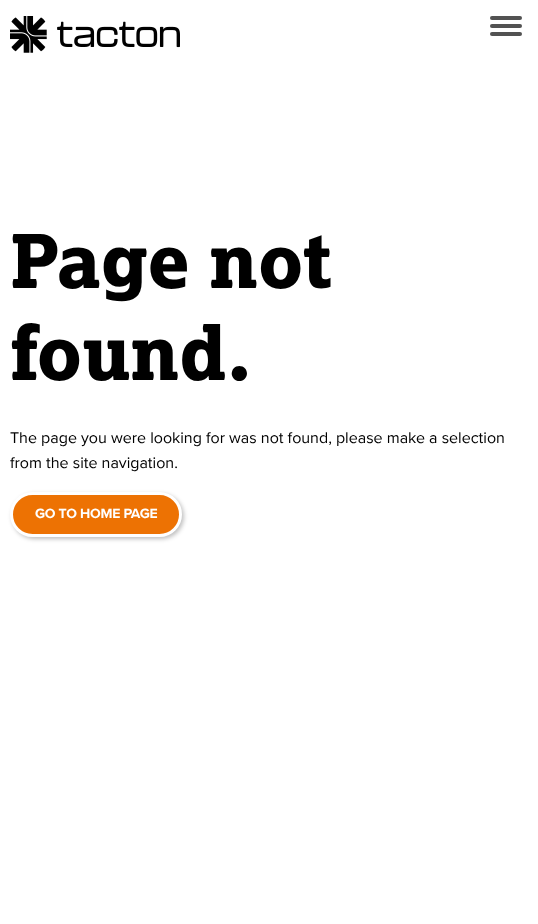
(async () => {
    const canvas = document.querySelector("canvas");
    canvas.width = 538;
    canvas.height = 924;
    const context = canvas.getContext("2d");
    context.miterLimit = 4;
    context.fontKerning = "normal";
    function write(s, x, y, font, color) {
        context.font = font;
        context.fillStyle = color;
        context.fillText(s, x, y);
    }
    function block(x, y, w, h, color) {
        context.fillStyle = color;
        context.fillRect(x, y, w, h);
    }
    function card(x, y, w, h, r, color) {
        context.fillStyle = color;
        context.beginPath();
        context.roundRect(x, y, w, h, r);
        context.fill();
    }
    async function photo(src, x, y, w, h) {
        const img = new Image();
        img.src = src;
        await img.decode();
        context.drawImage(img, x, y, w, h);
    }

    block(0, 0, 538, 924, "rgb(255, 255, 255)");
    await photo("media/1.png", 10, 16, 170, 37);
    card(490, 16, 32, 4, 2, "rgb(82, 82, 82)");
    card(490, 24, 32, 4, 2, "rgb(82, 82, 82)");
    card(490, 32, 32, 4, 2, "rgb(82, 82, 82)");
    write("Page not", 10, 288, "bold 74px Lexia", "rgb(0, 0, 0)");
    write("found.", 10, 380, "bold 74px Lexia", "rgb(0, 0, 0)");
    write("The page you were looking for was not found, please make a selection", 10, 443, "16px Proxima Nova", "rgb(0, 0, 0)");
    write("from the site navigation.", 10, 468, "16px Proxima Nova", "rgb(0, 0, 0)");
    context.fillStyle = "rgba(0, 0, 0, 0.25)";
    context.filter = "blur(2px)";
    context.beginPath();
    context.roundRect(12, 494, 172, 45, 22.5);
    context.fill();
    context.filter = "none";
    context.fillStyle = "rgb(237, 114, 3)";
    context.beginPath();
    context.roundRect(11.5, 493.5, 169, 42, 21);
    context.fill();
    context.strokeStyle = "rgb(255, 255, 255)";
    context.lineWidth = 3;
    context.stroke();
    context.letterSpacing = "-0.25px";
    write("GO TO HOME PAGE", 35, 518, "bold 14px Proxima Nova", "rgb(255, 255, 255)");
})();
